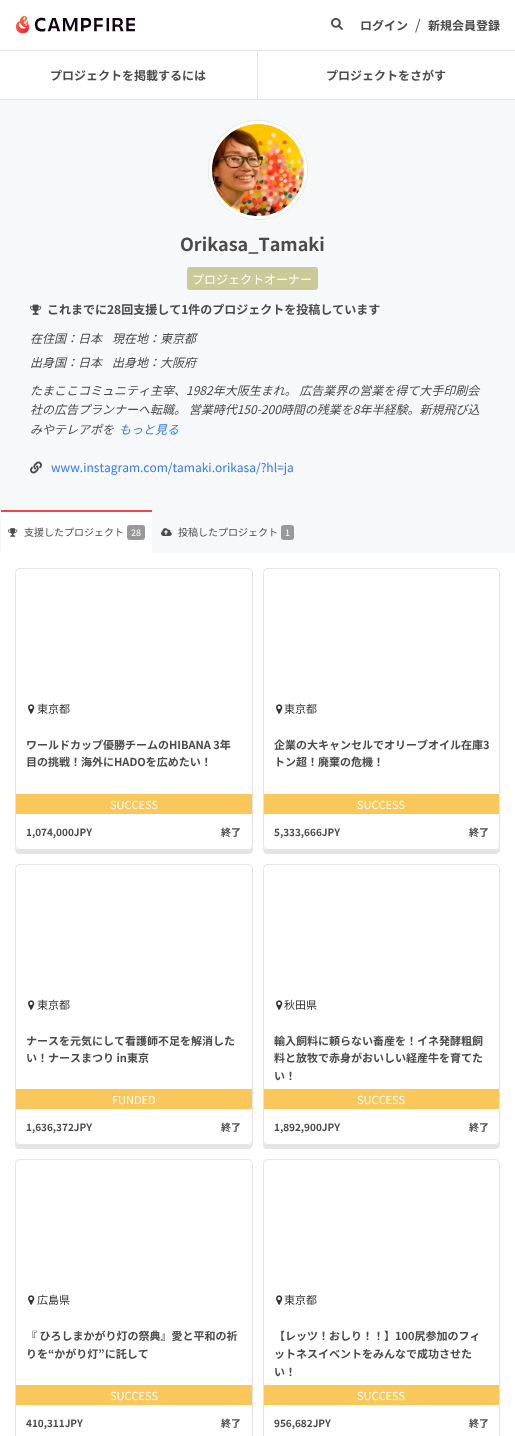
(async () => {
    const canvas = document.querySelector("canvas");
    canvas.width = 515;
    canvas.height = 1436;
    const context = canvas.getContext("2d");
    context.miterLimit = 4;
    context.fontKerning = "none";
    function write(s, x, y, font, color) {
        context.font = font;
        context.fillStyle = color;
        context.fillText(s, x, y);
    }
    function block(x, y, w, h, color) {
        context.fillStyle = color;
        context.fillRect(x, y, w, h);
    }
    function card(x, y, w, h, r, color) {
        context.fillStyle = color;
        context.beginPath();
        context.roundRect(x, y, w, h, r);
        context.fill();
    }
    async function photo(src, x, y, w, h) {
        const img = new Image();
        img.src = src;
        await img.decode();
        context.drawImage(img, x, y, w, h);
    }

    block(0, 0, 515, 1436, "rgb(255, 255, 255)");
    await photo("media/1.png", 16, 16, 119, 17);
    await photo("media/2.png", 331, 18, 12, 12);
    write("ログイン", 360, 30, "bold 12px Noto Sans JP", "rgb(77, 74, 74)");
    write("/", 415, 30, "14px Noto Sans JP", "rgb(77, 74, 74)");
    write("新規会員登録", 428, 30, "bold 12px Noto Sans JP", "rgb(77, 74, 74)");
    block(0, 50, 257, 1, "rgb(228, 228, 228)");
    block(0, 99, 257, 1, "rgb(228, 228, 228)");
    write("プロジェクトを掲載するには", 50, 80, "bold 12px Noto Sans JP", "rgb(77, 74, 74)");
    block(257, 50, 1, 50, "rgb(228, 228, 228)");
    block(258, 50, 257, 1, "rgb(228, 228, 228)");
    block(258, 99, 257, 1, "rgb(228, 228, 228)");
    write("プロジェクトをさがす", 326, 80, "bold 12px Noto Sans JP", "rgb(77, 74, 74)");
    block(0, 100, 515, 453, "rgb(246, 248, 250)");
    context.fillStyle = "rgb(255, 255, 255)";
    context.beginPath();
    context.arc(258, 170, 49.5, 0, Math.PI * 2);
    context.fill();
    context.strokeStyle = "rgb(228, 228, 228)";
    context.stroke();
    context.beginPath();
    context.arc(258, 170, 47.5, 0, Math.PI * 2);
    context.strokeStyle = "rgb(255, 255, 255)";
    context.lineWidth = 3;
    context.stroke();
    await photo("media/3.png", 212, 124, 92, 92);
    write("Orikasa_Tamaki", 180, 251, "bold 18px Noto Sans JP", "rgb(77, 74, 74)");
    card(187, 267, 131, 23, 3, "rgb(202, 202, 153)");
    write("プロジェクトオーナー", 192, 284, "12px Noto Sans JP", "rgb(255, 255, 255)");
    await photo("media/4.png", 30, 304, 12, 11);
    write("これまでに28回支援して1件のプロジェクトを投稿しています", 47, 314, "bold 12px Noto Sans JP", "rgb(77, 74, 74)");
    write("在住国：日本", 30, 343, "italic 12px Noto Sans JP", "rgb(77, 74, 74)");
    write("現在地：東京都", 112, 343, "italic 12px Noto Sans JP", "rgb(77, 74, 74)");
    write("出身国：日本", 30, 367, "italic 12px Noto Sans JP", "rgb(77, 74, 74)");
    write("出身地：大阪府", 112, 367, "italic 12px Noto Sans JP", "rgb(77, 74, 74)");
    write("たまここコミュニティ主宰、1982年大阪生まれ。 広告業界の営業を得て大手印刷会", 30, 395, "italic 12px Noto Sans JP", "rgb(77, 74, 74)");
    write("社の広告プランナーへ転職。 営業時代150-200時間の残業を8年半経験。新規飛び込", 30, 414, "italic 12px Noto Sans JP", "rgb(77, 74, 74)");
    write("みやテレアポを", 30, 434, "italic 12px Noto Sans JP", "rgb(77, 74, 74)");
    write("もっと見る", 119, 434, "italic 12px Noto Sans JP", "rgb(48, 123, 246)");
    await photo("media/5.png", 30, 461, 12, 13);
    write("www.instagram.com/tamaki.orikasa/?hl=ja", 51, 472, "12px Noto Sans JP", "rgb(48, 123, 246)");
    block(1, 512, 151, 41, "rgb(255, 255, 255)");
    block(1, 510, 151, 2, "rgb(239, 72, 70)");
    await photo("media/6.png", 8, 528, 10, 9);
    write("支援したプロジェクト", 24, 536, "10px Noto Sans JP", "rgb(77, 74, 74)");
    card(127, 525, 18, 15, 3, "rgb(153, 153, 153)");
    write("28", 131, 536, "9px Noto Sans JP", "rgb(255, 255, 255)");
    await photo("media/7.png", 161, 528, 11, 8);
    write("投稿したプロジェクト", 178, 536, "10px Noto Sans JP", "rgb(77, 74, 74)");
    card(281, 525, 13, 15, 3, "rgb(153, 153, 153)");
    write("1", 285, 536, "9px Noto Sans JP", "rgb(255, 255, 255)");
    context.fillStyle = "rgb(228, 228, 228)";
    context.beginPath();
    context.moveTo(15, 845);
    context.lineTo(15, 849);
    context.bezierCurveTo(15, 852, 17, 854, 20, 854);
    context.lineTo(248, 854);
    context.bezierCurveTo(251, 854, 253, 852, 253, 849);
    context.lineTo(253, 845);
    context.bezierCurveTo(253, 848, 251, 850, 248, 850);
    context.lineTo(20, 850);
    context.bezierCurveTo(17, 850, 15, 848, 15, 845);
    context.closePath();
    context.fill();
    context.fillStyle = "rgb(255, 255, 255)";
    context.beginPath();
    context.roundRect(15.5, 568.5, 237, 281, 4.5);
    context.fill();
    context.strokeStyle = "rgb(228, 228, 228)";
    context.lineWidth = 1;
    context.stroke();
    await photo("media/8.png", 28, 704, 7, 10);
    write("東京都", 37, 713, "11px Noto Sans JP", "rgb(51, 51, 51)");
    write("ワールドカップ優勝チームのHIBANA 3年", 26, 749, "bold 11px Noto Sans JP", "rgb(77, 74, 74)");
    write("目の挑戦！海外にHADOを広めたい！", 26, 766, "bold 11px Noto Sans JP", "rgb(77, 74, 74)");
    block(16, 794, 236, 20, "rgb(250, 199, 90)");
    write("SUCCESS", 110, 809, "11px Noto Sans JP", "rgb(255, 255, 255)");
    write("1,074,000JPY", 26, 836, "bold 10px Noto Sans JP", "rgb(77, 74, 74)");
    write("終了", 221, 836, "bold 10px Noto Sans JP", "rgb(77, 74, 74)");
    context.fillStyle = "rgb(228, 228, 228)";
    context.beginPath();
    context.moveTo(263, 845);
    context.lineTo(263, 849);
    context.bezierCurveTo(263, 852, 265, 854, 268, 854);
    context.lineTo(495, 854);
    context.bezierCurveTo(498, 854, 500, 852, 500, 849);
    context.lineTo(500, 845);
    context.bezierCurveTo(500, 848, 498, 850, 495, 850);
    context.lineTo(268, 850);
    context.bezierCurveTo(265, 850, 263, 848, 263, 845);
    context.closePath();
    context.fill();
    context.fillStyle = "rgb(255, 255, 255)";
    context.beginPath();
    context.roundRect(263.5, 568.5, 236, 281, 4.5);
    context.fill();
    context.stroke();
    await photo("media/8.png", 276, 704, 7, 10);
    write("東京都", 284, 713, "11px Noto Sans JP", "rgb(51, 51, 51)");
    write("企業の大キャンセルでオリーブオイル在庫3", 274, 749, "bold 11px Noto Sans JP", "rgb(77, 74, 74)");
    write("トン超！廃棄の危機！", 274, 766, "bold 11px Noto Sans JP", "rgb(77, 74, 74)");
    block(264, 794, 235, 20, "rgb(250, 199, 90)");
    write("SUCCESS", 357, 809, "11px Noto Sans JP", "rgb(255, 255, 255)");
    write("5,333,666JPY", 274, 836, "bold 10px Noto Sans JP", "rgb(77, 74, 74)");
    write("終了", 469, 836, "bold 10px Noto Sans JP", "rgb(77, 74, 74)");
    context.fillStyle = "rgb(228, 228, 228)";
    context.beginPath();
    context.moveTo(15, 1140);
    context.lineTo(15, 1144);
    context.bezierCurveTo(15, 1147, 17, 1149, 20, 1149);
    context.lineTo(248, 1149);
    context.bezierCurveTo(251, 1149, 253, 1147, 253, 1144);
    context.lineTo(253, 1140);
    context.bezierCurveTo(253, 1143, 251, 1145, 248, 1145);
    context.lineTo(20, 1145);
    context.bezierCurveTo(17, 1145, 15, 1143, 15, 1140);
    context.closePath();
    context.fill();
    context.fillStyle = "rgb(255, 255, 255)";
    context.beginPath();
    context.roundRect(15.5, 864.5, 237, 280, 4.5);
    context.fill();
    context.stroke();
    await photo("media/8.png", 28, 1000, 7, 10);
    write("東京都", 37, 1009, "11px Noto Sans JP", "rgb(51, 51, 51)");
    write("ナースを元気にして看護師不足を解消した", 26, 1045, "bold 11px Noto Sans JP", "rgb(77, 74, 74)");
    write("い！ナースまつり in東京", 26, 1062, "bold 11px Noto Sans JP", "rgb(77, 74, 74)");
    block(16, 1089, 236, 20, "rgb(250, 199, 90)");
    write("FUNDED", 112, 1104, "11px Noto Sans JP", "rgb(255, 255, 255)");
    write("1,636,372JPY", 26, 1131, "bold 10px Noto Sans JP", "rgb(77, 74, 74)");
    write("終了", 221, 1131, "bold 10px Noto Sans JP", "rgb(77, 74, 74)");
    context.fillStyle = "rgb(228, 228, 228)";
    context.beginPath();
    context.moveTo(263, 1140);
    context.lineTo(263, 1144);
    context.bezierCurveTo(263, 1147, 265, 1149, 268, 1149);
    context.lineTo(495, 1149);
    context.bezierCurveTo(498, 1149, 500, 1147, 500, 1144);
    context.lineTo(500, 1140);
    context.bezierCurveTo(500, 1143, 498, 1145, 495, 1145);
    context.lineTo(268, 1145);
    context.bezierCurveTo(265, 1145, 263, 1143, 263, 1140);
    context.closePath();
    context.fill();
    context.fillStyle = "rgb(255, 255, 255)";
    context.beginPath();
    context.roundRect(263.5, 864.5, 236, 280, 4.5);
    context.fill();
    context.stroke();
    await photo("media/8.png", 276, 1000, 7, 10);
    write("秋田県", 284, 1009, "11px Noto Sans JP", "rgb(51, 51, 51)");
    write("輸入飼料に頼らない畜産を！イネ発酵粗飼", 274, 1045, "bold 11px Noto Sans JP", "rgb(77, 74, 74)");
    write("料と放牧で赤身がおいしい経産牛を育てた", 274, 1062, "bold 11px Noto Sans JP", "rgb(77, 74, 74)");
    write("い！", 274, 1080, "bold 11px Noto Sans JP", "rgb(77, 74, 74)");
    block(264, 1089, 235, 20, "rgb(250, 199, 90)");
    write("SUCCESS", 357, 1104, "11px Noto Sans JP", "rgb(255, 255, 255)");
    write("1,892,900JPY", 274, 1131, "bold 10px Noto Sans JP", "rgb(77, 74, 74)");
    write("終了", 469, 1131, "bold 10px Noto Sans JP", "rgb(77, 74, 74)");
    context.beginPath();
    context.roundRect(15.5, 1159.5, 237, 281, 4.5);
    context.stroke();
    await photo("media/8.png", 28, 1295, 7, 10);
    write("広島県", 37, 1304, "11px Noto Sans JP", "rgb(51, 51, 51)");
    write("『 ひろしまかがり灯の祭典』愛と平和の祈", 26, 1340, "bold 11px Noto Sans JP", "rgb(77, 74, 74)");
    write("りを“かがり灯”に託して", 26, 1358, "bold 11px Noto Sans JP", "rgb(77, 74, 74)");
    block(16, 1385, 236, 20, "rgb(250, 199, 90)");
    write("SUCCESS", 110, 1400, "11px Noto Sans JP", "rgb(255, 255, 255)");
    write("410,311JPY", 26, 1427, "bold 10px Noto Sans JP", "rgb(77, 74, 74)");
    write("終了", 221, 1427, "bold 10px Noto Sans JP", "rgb(77, 74, 74)");
    context.beginPath();
    context.roundRect(263.5, 1159.5, 236, 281, 4.5);
    context.stroke();
    await photo("media/8.png", 276, 1295, 7, 10);
    write("東京都", 284, 1304, "11px Noto Sans JP", "rgb(51, 51, 51)");
    write("【レッツ！おしり！！】100尻参加のフィ", 274, 1340, "bold 11px Noto Sans JP", "rgb(77, 74, 74)");
    write("ットネスイベントをみんなで成功させた", 274, 1358, "bold 11px Noto Sans JP", "rgb(77, 74, 74)");
    write("い！", 274, 1376, "bold 11px Noto Sans JP", "rgb(77, 74, 74)");
    block(264, 1385, 235, 20, "rgb(250, 199, 90)");
    write("SUCCESS", 357, 1400, "11px Noto Sans JP", "rgb(255, 255, 255)");
    write("956,682JPY", 274, 1427, "bold 10px Noto Sans JP", "rgb(77, 74, 74)");
    write("終了", 469, 1427, "bold 10px Noto Sans JP", "rgb(77, 74, 74)");
})();
